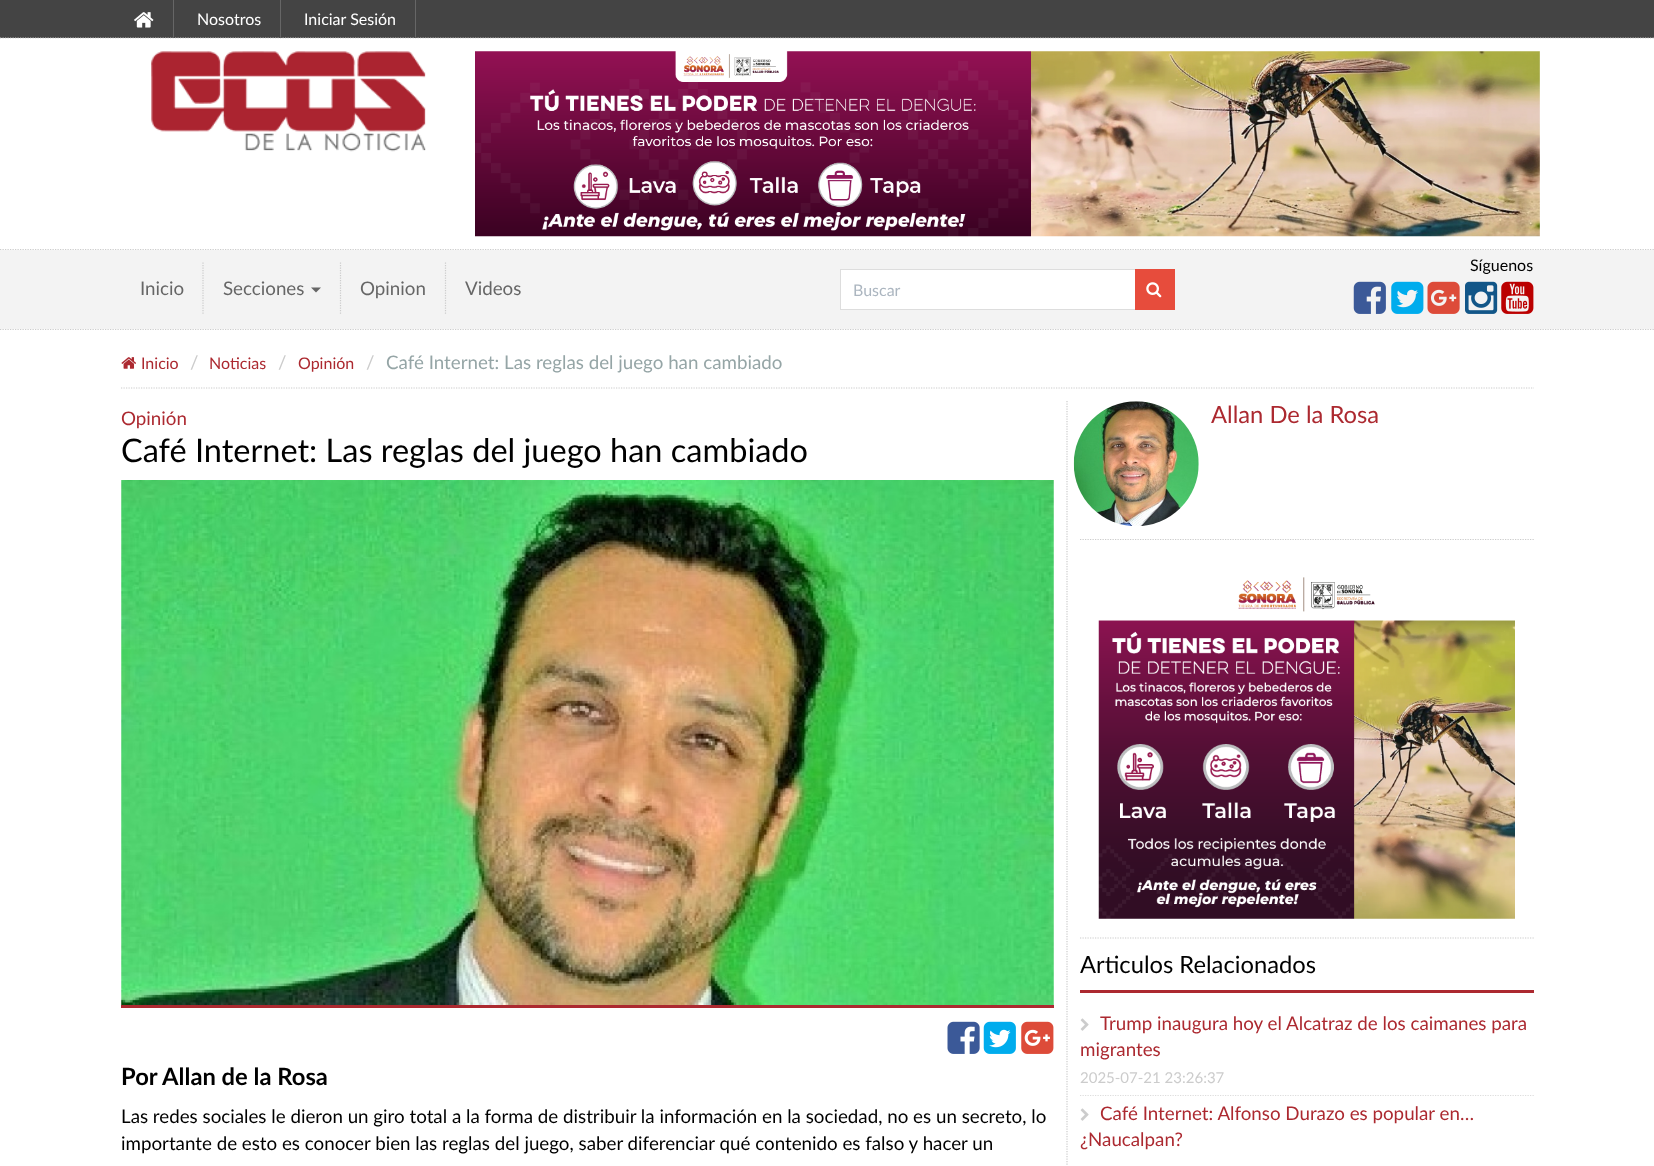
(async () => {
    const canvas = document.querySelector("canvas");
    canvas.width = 1654;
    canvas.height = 1166;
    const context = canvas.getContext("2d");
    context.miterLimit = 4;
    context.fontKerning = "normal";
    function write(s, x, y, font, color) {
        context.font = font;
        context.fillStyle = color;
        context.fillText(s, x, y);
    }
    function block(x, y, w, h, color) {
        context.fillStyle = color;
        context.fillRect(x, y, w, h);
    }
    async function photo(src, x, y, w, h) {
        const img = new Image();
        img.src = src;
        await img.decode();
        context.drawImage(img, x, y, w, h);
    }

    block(0, 0, 1654, 1166, "rgb(255, 255, 255)");
    block(0, 0, 1654, 38, "rgb(68, 68, 68)");
    context.beginPath();
    context.moveTo(0, 38);
    context.lineTo(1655, 38);
    context.strokeStyle = "rgb(204, 204, 204)";
    context.lineWidth = 1.2;
    context.setLineDash([1.25, 1.25]);
    context.stroke();
    block(173, 0, 1, 38, "rgb(102, 102, 102)");
    await photo("media/1.png", 134, 12, 20, 16);
    block(280, 0, 1, 38, "rgb(102, 102, 102)");
    write("Nosotros", 197, 25, "16px Lato", "rgb(255, 255, 255)");
    block(415, 0, 1, 38, "rgb(102, 102, 102)");
    write("Iniciar Sesión", 304, 25, "16px Lato", "rgb(255, 255, 255)");
    context.beginPath();
    context.moveTo(0, 249.5);
    context.lineTo(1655, 249.5);
    context.stroke();
    await photo("media/2.png", 151, 51, 275, 101);
    await photo("media/3.png", 475, 51, 1065, 186);
    context.beginPath();
    context.moveTo(0, 329.5);
    context.lineTo(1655, 329.5);
    context.stroke();
    block(0, 250, 1654, 79, "rgb(243, 243, 243)");
    write("Síguenos", 1470, 271, "16px Lato", "rgb(0, 0, 0)");
    await photo("media/4.png", 1353, 281, 33, 33);
    await photo("media/5.png", 1391, 281, 33, 33);
    await photo("media/6.png", 1427, 281, 33, 33);
    await photo("media/7.png", 1465, 281, 33, 33);
    await photo("media/8.png", 1501, 281, 33, 33);
    write("Inicio", 140, 295, "18.75px Lato", "rgb(102, 102, 102)");
    context.beginPath();
    context.moveTo(203, 262.5);
    context.lineTo(203, 314);
    context.stroke();
    write("Secciones", 223, 295, "18.75px Lato", "rgb(102, 102, 102)");
    context.beginPath();
    context.moveTo(311, 287.5);
    context.lineTo(321, 287.5);
    context.lineTo(316, 292.5);
    context.closePath();
    context.fill();
    context.beginPath();
    context.moveTo(340.5, 262.5);
    context.lineTo(340.5, 314);
    context.stroke();
    write("Opinion", 360, 295, "18.75px Lato", "rgb(102, 102, 102)");
    context.beginPath();
    context.moveTo(445.5, 262.5);
    context.lineTo(445.5, 314);
    context.stroke();
    write("Videos", 465, 295, "18.75px Lato", "rgb(102, 102, 102)");
    block(841, 270, 294, 39, "rgb(255, 255, 255)");
    block(840, 269, 295, 1, "rgb(221, 221, 221)");
    block(840, 309, 295, 1, "rgb(221, 221, 221)");
    block(840, 269, 1, 41, "rgb(221, 221, 221)");
    write("Buscar", 853, 296, "16px Lato", "rgb(172, 182, 192)");
    block(1135, 269, 40, 41, "rgb(231, 76, 60)");
    await photo("media/9.png", 1146, 282, 16, 16);
    await photo("media/10.png", 121, 357, 15, 12);
    write("Inicio", 141, 369, "16px Lato", "rgb(172, 41, 48)");
    write("/", 190, 369, "18.75px Lato", "rgb(204, 204, 204)");
    write("Noticias", 209, 369, "16px Lato", "rgb(172, 41, 48)");
    write("/", 278, 369, "18.75px Lato", "rgb(204, 204, 204)");
    write("Opinión", 298, 369, "16px Lato", "rgb(172, 41, 48)");
    write("/", 366, 369, "18.75px Lato", "rgb(204, 204, 204)");
    write("Café Internet: Las reglas del juego han cambiado", 386, 369, "18.75px Lato", "rgb(149, 165, 166)");
    context.beginPath();
    context.moveTo(121, 388);
    context.lineTo(1534, 388);
    context.stroke();
    context.beginPath();
    context.moveTo(1067, 401);
    context.lineTo(1067, 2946);
    context.stroke();
    write("Opinión", 121, 425, "18.75px Lato", "rgb(172, 41, 48)");
    write("Café Internet: Las reglas del juego han cambiado", 121, 462, "32.5px Lato", "rgb(0, 0, 0)");
    block(121, 1005, 933, 3, "rgb(172, 41, 48)");
    await photo("media/11.png", 121, 480, 933, 525);
    await photo("media/12.png", 947, 1021, 33, 33);
    await photo("media/13.png", 983, 1021, 33, 33);
    await photo("media/14.png", 1021, 1021, 33, 33);
    write("Por Allan de la Rosa", 121, 1085, "bold 23.75px Lato", "rgb(0, 0, 0)");
    write("Las redes sociales le dieron un giro total a la forma de distribuir la información en la sociedad, no es un secreto, lo", 121, 1123, "18.75px Lato", "rgb(0, 0, 0)");
    write("importante de esto es conocer bien las reglas del juego, saber diferenciar qué contenido es falso y hacer un", 121, 1150, "18.75px Lato", "rgb(0, 0, 0)");
    await photo("media/15.png", 1073, 401, 126, 125);
    write("Allan De la Rosa", 1211, 423, "23.75px Lato", "rgb(172, 41, 48)");
    context.beginPath();
    context.moveTo(1080, 539.5);
    context.lineTo(1534, 539.5);
    context.stroke();
    context.beginPath();
    context.moveTo(1080, 938);
    context.lineTo(1534, 938);
    context.stroke();
    await photo("media/16.png", 1098, 577, 417, 342);
    block(1080, 990, 454, 3, "rgb(172, 41, 48)");
    write("Articulos Relacionados", 1080, 973, "23.75px Lato", "rgb(0, 0, 0)");
    context.beginPath();
    context.moveTo(1080, 1095.5);
    context.lineTo(1534, 1095.5);
    context.strokeStyle = "rgb(221, 221, 221)";
    context.stroke();
    await photo("media/17.png", 1080, 1018, 9, 13);
    write("Trump inaugura hoy el Alcatraz de los caimanes para", 1100, 1030, "18.75px Lato", "rgb(172, 41, 48)");
    write("migrantes", 1080, 1056, "18.75px Lato", "rgb(172, 41, 48)");
    write("2025-07-21 23:26:37", 1080, 1083, "15px Lato", "rgb(204, 204, 204)");
    await photo("media/17.png", 1080, 1108, 9, 13);
    write("Café Internet: Alfonso Durazo es popular en…", 1100, 1120, "18.75px Lato", "rgb(172, 41, 48)");
    write("¿Naucalpan?", 1080, 1146, "18.75px Lato", "rgb(172, 41, 48)");
})();
